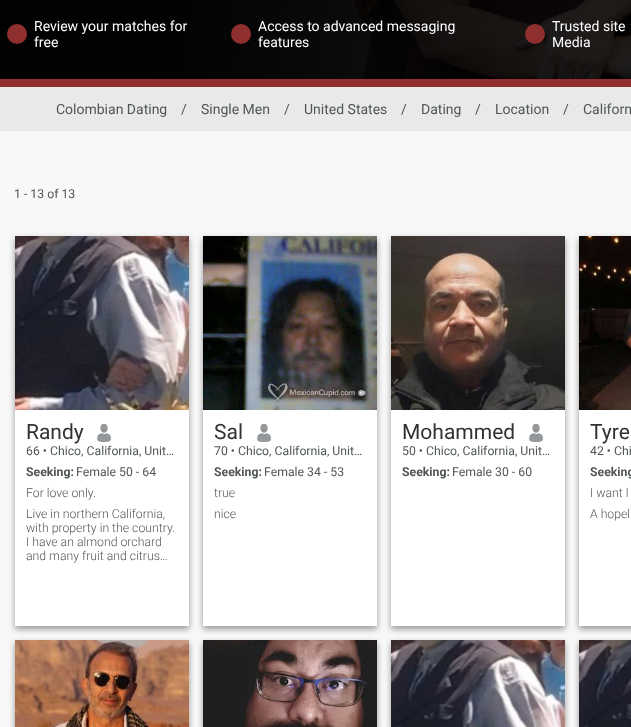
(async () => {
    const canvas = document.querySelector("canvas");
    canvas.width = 631;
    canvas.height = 727;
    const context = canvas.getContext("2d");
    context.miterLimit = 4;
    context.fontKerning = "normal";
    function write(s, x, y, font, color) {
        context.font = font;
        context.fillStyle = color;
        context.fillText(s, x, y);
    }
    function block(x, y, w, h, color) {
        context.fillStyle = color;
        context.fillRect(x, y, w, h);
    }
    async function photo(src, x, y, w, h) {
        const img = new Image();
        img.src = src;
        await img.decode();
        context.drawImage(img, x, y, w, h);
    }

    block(0, 0, 631, 727, "rgb(248, 248, 248)");
    await photo("media/1.png", 0, 0, 631, 79);
    context.fillStyle = "rgb(144, 47, 47)";
    context.beginPath();
    context.arc(17, 34, 10, 0, Math.PI * 2);
    context.fill();
    write("Review your matches for", 34, 31, "14px Roboto", "rgb(255, 255, 255)");
    write("free", 34, 47, "14px Roboto", "rgb(255, 255, 255)");
    context.fillStyle = "rgb(144, 47, 47)";
    context.beginPath();
    context.arc(241, 34, 10, 0, Math.PI * 2);
    context.fill();
    write("Access to advanced messaging", 258, 31, "14px Roboto", "rgb(255, 255, 255)");
    write("features", 258, 47, "14px Roboto", "rgb(255, 255, 255)");
    context.fillStyle = "rgb(144, 47, 47)";
    context.beginPath();
    context.arc(535, 34, 10, 0, Math.PI * 2);
    context.fill();
    write("Trusted site", 552, 31, "14px Roboto", "rgb(255, 255, 255)");
    write("Media", 552, 47, "14px Roboto", "rgb(255, 255, 255)");
    block(0, 79, 631, 8, "rgb(144, 47, 47)");
    block(0, 87, 631, 44, "rgb(233, 233, 233)");
    write("Colombian Dating", 56, 114, "14px Roboto", "rgb(80, 86, 86)");
    write("/", 181, 114, "14px Roboto", "rgb(80, 86, 86)");
    write("Single Men", 201, 114, "14px Roboto", "rgb(80, 86, 86)");
    write("/", 284, 114, "14px Roboto", "rgb(80, 86, 86)");
    write("United States", 304, 114, "14px Roboto", "rgb(80, 86, 86)");
    write("/", 401, 114, "14px Roboto", "rgb(80, 86, 86)");
    write("Dating", 421, 114, "14px Roboto", "rgb(80, 86, 86)");
    write("/", 475, 114, "14px Roboto", "rgb(80, 86, 86)");
    write("Location", 495, 114, "14px Roboto", "rgb(80, 86, 86)");
    write("/", 563, 114, "14px Roboto", "rgb(80, 86, 86)");
    write("Californ", 583, 114, "14px Roboto", "rgb(80, 86, 86)");
    write("1 - 13 of 13", 14, 198, "12.25px Roboto", "rgb(80, 86, 86)");
    context.fillStyle = "rgba(0, 0, 0, 0.4)";
    context.filter = "blur(3px)";
    context.beginPath();
    context.rect(15, 239, 174, 390);
    context.fill();
    context.filter = "none";
    block(15, 410, 174, 216, "rgb(255, 255, 255)");
    await photo("media/2.png", 15, 236, 174, 174);
    write("Randy", 26, 439, "21px Roboto", "rgb(50, 50, 50)");
    await photo("media/3.png", 97, 424, 14, 18);
    write("66 • Chico, California, Unit…", 26, 455, "12.25px Roboto", "rgb(80, 86, 86)");
    write("Seeking:", 26, 476, "bold 12.25px Roboto", "rgb(80, 86, 86)");
    write("Female 50 - 64", 76, 476, "12.25px Roboto", "rgb(80, 86, 86)");
    write("For love only.", 26, 497, "300 12.25px Roboto", "rgb(80, 86, 86)");
    write("Live in northern California,", 26, 518, "300 12.25px Roboto", "rgb(80, 86, 86)");
    write("with property in the country.", 26, 532, "300 12.25px Roboto", "rgb(80, 86, 86)");
    write("I have an almond orchard", 26, 546, "300 12.25px Roboto", "rgb(80, 86, 86)");
    write("and many fruit and citrus…", 26, 560, "300 12.25px Roboto", "rgb(80, 86, 86)");
    context.fillStyle = "rgba(0, 0, 0, 0.4)";
    context.filter = "blur(3px)";
    context.beginPath();
    context.rect(203, 239, 174, 390);
    context.fill();
    context.filter = "none";
    block(203, 410, 174, 216, "rgb(255, 255, 255)");
    await photo("media/4.png", 203, 236, 174, 174);
    write("Sal", 214, 439, "21px Roboto", "rgb(50, 50, 50)");
    await photo("media/3.png", 257, 424, 14, 18);
    write("70 • Chico, California, Unit…", 214, 455, "12.25px Roboto", "rgb(80, 86, 86)");
    write("Seeking:", 214, 476, "bold 12.25px Roboto", "rgb(80, 86, 86)");
    write("Female 34 - 53", 264, 476, "12.25px Roboto", "rgb(80, 86, 86)");
    write("true", 214, 497, "300 12.25px Roboto", "rgb(80, 86, 86)");
    write("nice", 214, 518, "300 12.25px Roboto", "rgb(80, 86, 86)");
    context.fillStyle = "rgba(0, 0, 0, 0.4)";
    context.filter = "blur(3px)";
    context.beginPath();
    context.rect(391, 239, 174, 390);
    context.fill();
    context.filter = "none";
    block(391, 410, 174, 216, "rgb(255, 255, 255)");
    await photo("media/5.png", 391, 236, 174, 174);
    write("Mohammed", 402, 439, "21px Roboto", "rgb(50, 50, 50)");
    await photo("media/3.png", 529, 424, 14, 18);
    write("50 • Chico, California, Unit…", 402, 455, "12.25px Roboto", "rgb(80, 86, 86)");
    write("Seeking:", 402, 476, "bold 12.25px Roboto", "rgb(80, 86, 86)");
    write("Female 30 - 60", 452, 476, "12.25px Roboto", "rgb(80, 86, 86)");
    context.fillStyle = "rgba(0, 0, 0, 0.4)";
    context.filter = "blur(3px)";
    context.beginPath();
    context.rect(579, 239, 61, 390);
    context.fill();
    context.filter = "none";
    block(579, 410, 52, 216, "rgb(255, 255, 255)");
    await photo("media/6.png", 579, 236, 52, 174);
    write("Tyre", 590, 439, "21px Roboto", "rgb(50, 50, 50)");
    write("42 • Chi", 590, 455, "12.25px Roboto", "rgb(80, 86, 86)");
    write("Seeking", 590, 476, "bold 12.25px Roboto", "rgb(80, 86, 86)");
    write("I want l", 590, 497, "300 12.25px Roboto", "rgb(80, 86, 86)");
    write("A hopel", 590, 518, "300 12.25px Roboto", "rgb(80, 86, 86)");
    context.fillStyle = "rgba(0, 0, 0, 0.4)";
    context.filter = "blur(3px)";
    context.beginPath();
    context.rect(15, 643, 174, 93);
    context.fill();
    context.filter = "none";
    await photo("media/7.png", 15, 640, 174, 87);
    context.filter = "blur(3px)";
    context.beginPath();
    context.rect(203, 643, 174, 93);
    context.fill();
    context.filter = "none";
    await photo("media/8.png", 203, 640, 174, 87);
    context.filter = "blur(3px)";
    context.beginPath();
    context.rect(391, 643, 174, 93);
    context.fill();
    context.filter = "none";
    await photo("media/9.png", 391, 640, 174, 87);
    context.filter = "blur(3px)";
    context.beginPath();
    context.rect(579, 643, 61, 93);
    context.fill();
    context.filter = "none";
    await photo("media/10.png", 579, 640, 52, 87);
})();
